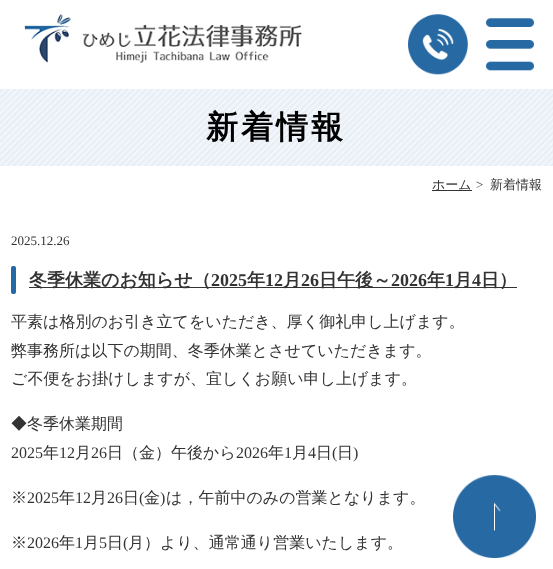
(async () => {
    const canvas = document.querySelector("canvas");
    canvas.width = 553;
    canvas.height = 569;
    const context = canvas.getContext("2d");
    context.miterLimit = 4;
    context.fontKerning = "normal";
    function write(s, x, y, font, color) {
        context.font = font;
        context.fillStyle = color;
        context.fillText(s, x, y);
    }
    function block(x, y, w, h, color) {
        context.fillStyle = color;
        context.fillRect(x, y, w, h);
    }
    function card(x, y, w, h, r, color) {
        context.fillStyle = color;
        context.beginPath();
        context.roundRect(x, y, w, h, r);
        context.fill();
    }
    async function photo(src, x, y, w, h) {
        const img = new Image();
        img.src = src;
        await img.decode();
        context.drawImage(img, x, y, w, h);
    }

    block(0, 0, 553, 569, "rgb(255, 255, 255)");
    await photo("media/1.png", 24, 14, 278, 49);
    await photo("media/2.png", 408, 14, 60, 61);
    await photo("media/3.png", 486, 18, 48, 53);
    await photo("media/4.png", 0, 89, 553, 77);
    context.letterSpacing = "3px";
    write("新着情報", 206, 138, "bold 32px WenQuanYi Zen Hei", "rgb(0, 0, 0)");
    block(432, 190, 40, 1, "rgb(51, 51, 51)");
    context.letterSpacing = "0px";
    write("ホーム", 432, 189, "500 13px WenQuanYi Zen Hei", "rgb(51, 51, 51)");
    write(">", 476, 189, "13px Liberation Serif", "rgb(51, 51, 51)");
    write("新着情報", 490, 189, "500 13px WenQuanYi Zen Hei", "rgb(51, 51, 51)");
    write("2025.12.26", 11, 245, "13px Liberation Serif", "rgb(51, 51, 51)");
    card(11, 266, 5, 28, 2, "rgb(36, 105, 166)");
    block(29, 287, 488, 1, "rgb(51, 51, 51)");
    write("冬季休業のお知らせ（", 29, 286, "bold 18px WenQuanYi Zen Hei", "rgb(51, 51, 51)");
    write("2025", 211, 286, "bold 18px Liberation Serif", "rgb(51, 51, 51)");
    write("年", 247, 286, "bold 18px WenQuanYi Zen Hei", "rgb(51, 51, 51)");
    write("12", 265, 286, "bold 18px Liberation Serif", "rgb(51, 51, 51)");
    write("月", 283, 286, "bold 18px WenQuanYi Zen Hei", "rgb(51, 51, 51)");
    write("26", 301, 286, "bold 18px Liberation Serif", "rgb(51, 51, 51)");
    write("日午後～", 319, 286, "bold 18px WenQuanYi Zen Hei", "rgb(51, 51, 51)");
    write("2026", 391, 286, "bold 18px Liberation Serif", "rgb(51, 51, 51)");
    write("年", 427, 286, "bold 18px WenQuanYi Zen Hei", "rgb(51, 51, 51)");
    write("1", 445, 286, "bold 18px Liberation Serif", "rgb(51, 51, 51)");
    write("月", 454, 286, "bold 18px WenQuanYi Zen Hei", "rgb(51, 51, 51)");
    write("4", 472, 286, "bold 18px Liberation Serif", "rgb(51, 51, 51)");
    write("日）", 481, 286, "bold 18px WenQuanYi Zen Hei", "rgb(51, 51, 51)");
    write("平素は格別のお引き立てをいただき、厚く御礼申し上げます。", 11, 327, "500 16px WenQuanYi Zen Hei", "rgb(51, 51, 51)");
    write("弊事務所は以下の期間、冬季休業とさせていただきます。", 11, 356, "500 16px WenQuanYi Zen Hei", "rgb(51, 51, 51)");
    write("ご不便をお掛けしますが、宜しくお願い申し上げます。", 11, 384, "500 16px WenQuanYi Zen Hei", "rgb(51, 51, 51)");
    write("◆冬季休業期間", 11, 429, "500 16px WenQuanYi Zen Hei", "rgb(51, 51, 51)");
    write("2025", 11, 458, "16px Liberation Serif", "rgb(51, 51, 51)");
    write("年", 43, 458, "500 16px WenQuanYi Zen Hei", "rgb(51, 51, 51)");
    write("12", 59, 458, "16px Liberation Serif", "rgb(51, 51, 51)");
    write("月", 75, 458, "500 16px WenQuanYi Zen Hei", "rgb(51, 51, 51)");
    write("26", 91, 458, "16px Liberation Serif", "rgb(51, 51, 51)");
    write("日（金）午後から", 107, 458, "500 16px WenQuanYi Zen Hei", "rgb(51, 51, 51)");
    write("2026", 236, 458, "16px Liberation Serif", "rgb(51, 51, 51)");
    write("年", 268, 458, "500 16px WenQuanYi Zen Hei", "rgb(51, 51, 51)");
    write("1", 284, 458, "16px Liberation Serif", "rgb(51, 51, 51)");
    write("月", 292, 458, "500 16px WenQuanYi Zen Hei", "rgb(51, 51, 51)");
    write("4", 308, 458, "16px Liberation Serif", "rgb(51, 51, 51)");
    write("日", 316, 458, "500 16px WenQuanYi Zen Hei", "rgb(51, 51, 51)");
    write("(", 332, 458, "16px Liberation Serif", "rgb(51, 51, 51)");
    write("日", 337, 458, "500 16px WenQuanYi Zen Hei", "rgb(51, 51, 51)");
    write(")", 353, 458, "16px Liberation Serif", "rgb(51, 51, 51)");
    write("※", 11, 503, "500 16px WenQuanYi Zen Hei", "rgb(51, 51, 51)");
    write("2025", 27, 503, "16px Liberation Serif", "rgb(51, 51, 51)");
    write("年", 59, 503, "500 16px WenQuanYi Zen Hei", "rgb(51, 51, 51)");
    write("12", 75, 503, "16px Liberation Serif", "rgb(51, 51, 51)");
    write("月", 91, 503, "500 16px WenQuanYi Zen Hei", "rgb(51, 51, 51)");
    write("26", 107, 503, "16px Liberation Serif", "rgb(51, 51, 51)");
    write("日", 123, 503, "500 16px WenQuanYi Zen Hei", "rgb(51, 51, 51)");
    write("(", 139, 503, "16px Liberation Serif", "rgb(51, 51, 51)");
    write("金", 144, 503, "500 16px WenQuanYi Zen Hei", "rgb(51, 51, 51)");
    write(")", 160, 503, "16px Liberation Serif", "rgb(51, 51, 51)");
    write("は，午前中のみの営業となります。", 166, 503, "500 16px WenQuanYi Zen Hei", "rgb(51, 51, 51)");
    write("※", 11, 548, "500 16px WenQuanYi Zen Hei", "rgb(51, 51, 51)");
    write("2026", 27, 548, "16px Liberation Serif", "rgb(51, 51, 51)");
    write("年", 59, 548, "500 16px WenQuanYi Zen Hei", "rgb(51, 51, 51)");
    write("1", 75, 548, "16px Liberation Serif", "rgb(51, 51, 51)");
    write("月", 83, 548, "500 16px WenQuanYi Zen Hei", "rgb(51, 51, 51)");
    write("5", 99, 548, "16px Liberation Serif", "rgb(51, 51, 51)");
    write("日", 107, 548, "500 16px WenQuanYi Zen Hei", "rgb(51, 51, 51)");
    write("(", 123, 548, "16px Liberation Serif", "rgb(51, 51, 51)");
    write("月）より、通常通り営業いたします。", 128, 548, "500 16px WenQuanYi Zen Hei", "rgb(51, 51, 51)");
    await photo("media/5.png", 453, 475, 83, 83);
})();
